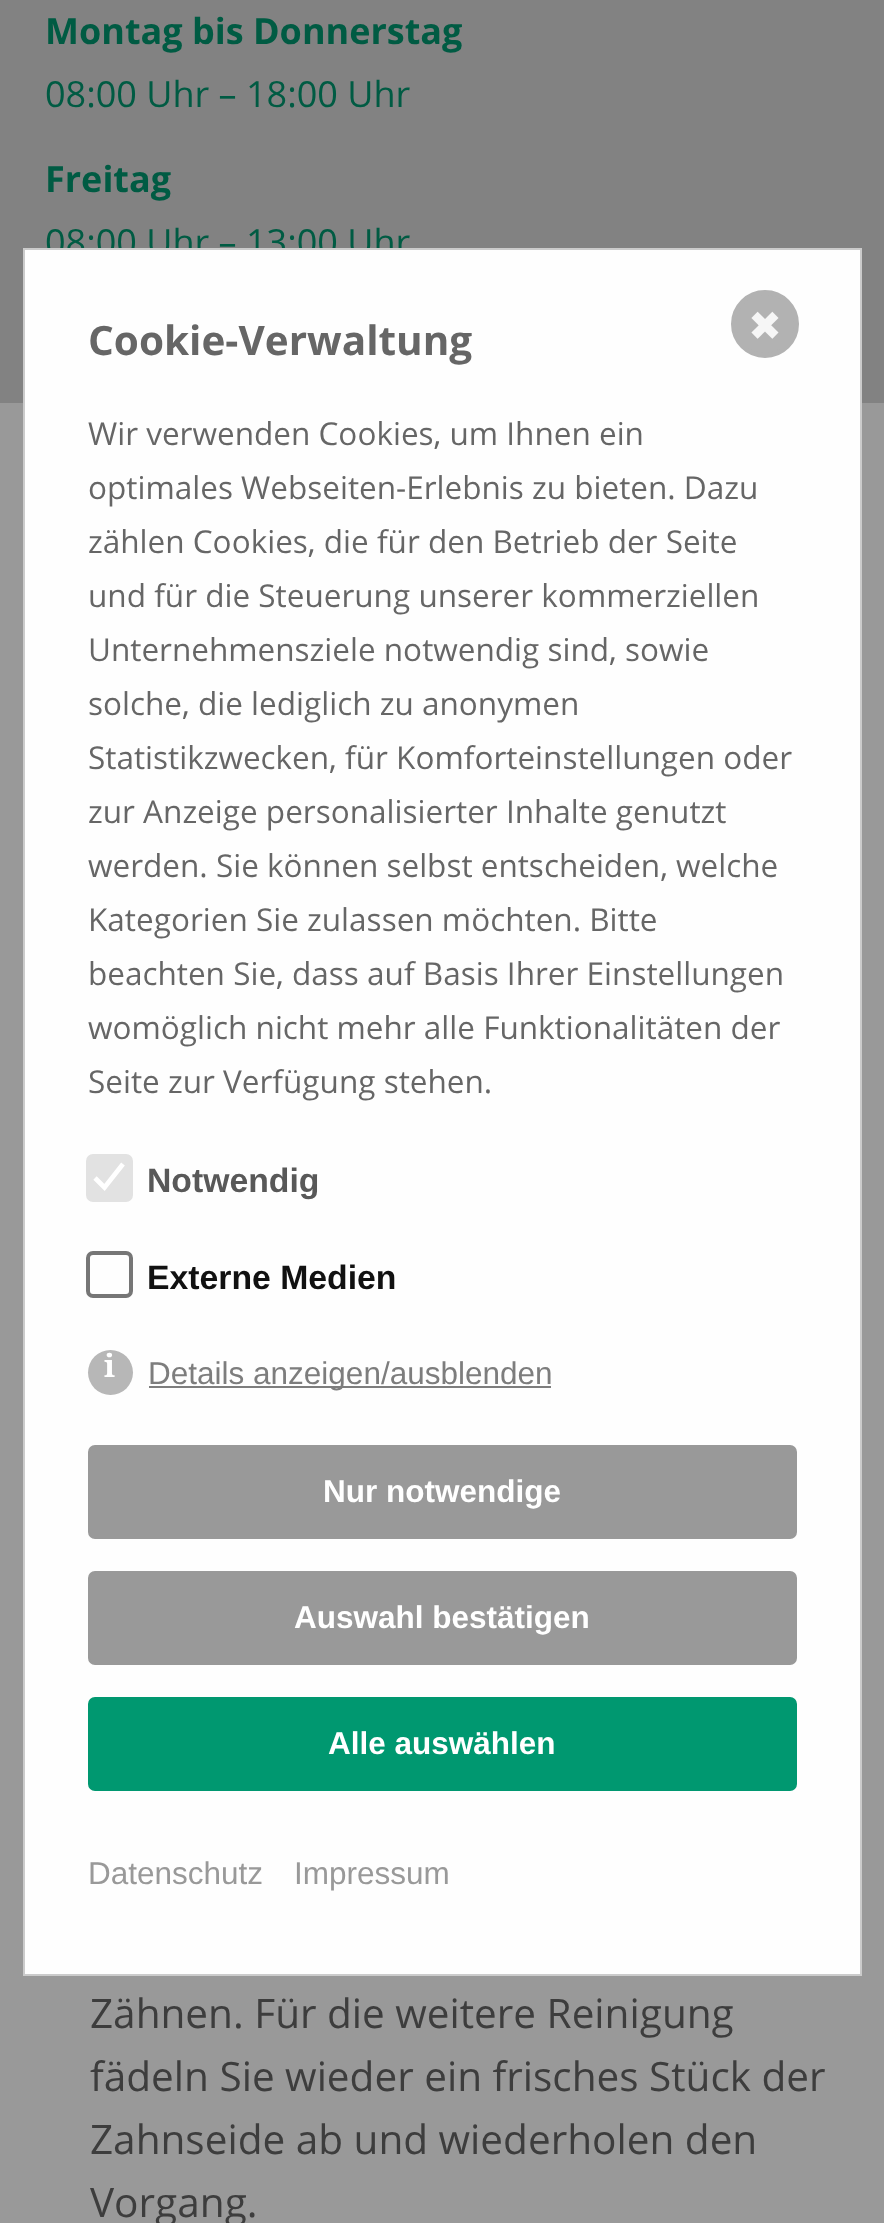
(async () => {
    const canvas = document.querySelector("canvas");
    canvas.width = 884;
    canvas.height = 2223;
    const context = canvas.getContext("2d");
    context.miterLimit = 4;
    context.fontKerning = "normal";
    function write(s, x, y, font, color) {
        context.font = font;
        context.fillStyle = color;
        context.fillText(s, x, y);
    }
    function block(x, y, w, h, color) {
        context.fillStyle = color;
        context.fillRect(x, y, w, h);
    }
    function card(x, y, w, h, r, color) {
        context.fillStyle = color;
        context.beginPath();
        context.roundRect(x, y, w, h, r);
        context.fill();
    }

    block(0, 0, 884, 2223, "rgb(153, 153, 153)");
    block(0, 0, 884, 403, "rgb(130, 130, 130)");
    write("Montag bis Donnerstag", 45, 44, "bold 36px Open Sans", "rgb(0, 91, 67)");
    write("08:00 Uhr – 18:00 Uhr", 45, 107, "36px Open Sans", "rgb(0, 91, 67)");
    write("Freitag", 45, 192, "bold 36px Open Sans", "rgb(0, 91, 67)");
    write("08:00 Uhr – 13:00 Uhr", 45, 255, "36px Open Sans", "rgb(0, 91, 67)");
    context.fillStyle = "rgb(254, 254, 254)";
    context.beginPath();
    context.rect(24, 249, 837, 1726);
    context.fill();
    context.strokeStyle = "rgb(203, 203, 203)";
    context.lineWidth = 2;
    context.stroke();
    context.fillStyle = "rgb(178, 178, 178)";
    context.beginPath();
    context.arc(765, 324, 31.5, 0, Math.PI * 2);
    context.fill();
    context.strokeStyle = "rgb(178, 178, 178)";
    context.lineWidth = 5;
    context.stroke();
    write("✖", 748, 340, "40.5px DejaVu Sans", "rgb(246, 246, 246)");
    write("Cookie-Verwaltung", 88, 355, "bold 40.5px Open Sans", "rgb(102, 102, 102)");
    write("Wir verwenden Cookies, um Ihnen ein", 88, 445, "31.5px Open Sans", "rgb(102, 102, 102)");
    write("optimales Webseiten-Erlebnis zu bieten. Dazu", 88, 499, "31.5px Open Sans", "rgb(102, 102, 102)");
    write("zählen Cookies, die für den Betrieb der Seite", 88, 553, "31.5px Open Sans", "rgb(102, 102, 102)");
    write("und für die Steuerung unserer kommerziellen", 88, 607, "31.5px Open Sans", "rgb(102, 102, 102)");
    write("Unternehmensziele notwendig sind, sowie", 88, 661, "31.5px Open Sans", "rgb(102, 102, 102)");
    write("solche, die lediglich zu anonymen", 88, 715, "31.5px Open Sans", "rgb(102, 102, 102)");
    write("Statistikzwecken, für Komforteinstellungen oder", 88, 769, "31.5px Open Sans", "rgb(102, 102, 102)");
    write("zur Anzeige personalisierter Inhalte genutzt", 88, 823, "31.5px Open Sans", "rgb(102, 102, 102)");
    write("werden. Sie können selbst entscheiden, welche", 88, 877, "31.5px Open Sans", "rgb(102, 102, 102)");
    write("Kategorien Sie zulassen möchten. Bitte", 88, 931, "31.5px Open Sans", "rgb(102, 102, 102)");
    write("beachten Sie, dass auf Basis Ihrer Einstellungen", 88, 985, "31.5px Open Sans", "rgb(102, 102, 102)");
    write("womöglich nicht mehr alle Funktionalitäten der", 88, 1039, "31.5px Open Sans", "rgb(102, 102, 102)");
    write("Seite zur Verfügung stehen.", 88, 1093, "31.5px Open Sans", "rgb(102, 102, 102)");
    card(86, 1154, 47, 48, 7, "rgb(226, 226, 226)");
    context.beginPath();
    context.moveTo(95, 1178);
    context.lineTo(104.5, 1187.5);
    context.lineTo(123, 1164);
    context.strokeStyle = "rgb(255, 255, 255)";
    context.lineWidth = 4.7;
    context.stroke();
    write("Notwendig", 147, 1192, "bold 33.75px Liberation Sans", "rgb(88, 88, 88)");
    context.beginPath();
    context.roundRect(88, 1253, 43, 43, 5);
    context.strokeStyle = "rgb(118, 118, 118)";
    context.lineWidth = 4;
    context.stroke();
    write("Externe Medien", 147, 1289, "bold 33.75px Liberation Sans", "rgb(17, 17, 17)");
    context.fillStyle = "rgb(183, 183, 183)";
    context.beginPath();
    context.arc(110.5, 1372.5, 22.5, 0, Math.PI * 2);
    context.fill();
    write("i", 104, 1377, "bold 31.5px Noto Serif", "rgb(255, 255, 255)");
    block(149, 1386, 402, 2, "rgb(125, 125, 125)");
    write("Details anzeigen/ausblenden", 148, 1384, "31.5px Liberation Sans", "rgb(125, 125, 125)");
    context.fillStyle = "rgb(153, 153, 153)";
    context.beginPath();
    context.roundRect(89, 1446, 707, 92, 6);
    context.fill();
    context.strokeStyle = "rgb(153, 153, 153)";
    context.lineWidth = 2;
    context.stroke();
    write("Nur notwendige", 323, 1502, "bold 31.5px Liberation Sans", "rgb(255, 255, 255)");
    context.fillStyle = "rgb(153, 153, 153)";
    context.beginPath();
    context.roundRect(89, 1572, 707, 92, 6);
    context.fill();
    context.stroke();
    write("Auswahl bestätigen", 294, 1628, "bold 31.5px Liberation Sans", "rgb(255, 255, 255)");
    context.fillStyle = "rgb(0, 152, 112)";
    context.beginPath();
    context.roundRect(89, 1698, 707, 92, 6);
    context.fill();
    context.strokeStyle = "rgb(0, 152, 112)";
    context.stroke();
    write("Alle auswählen", 328, 1754, "bold 31.5px Liberation Sans", "rgb(255, 255, 255)");
    write("Datenschutz", 88, 1884, "31.5px Liberation Sans", "rgb(153, 153, 153)");
    write("Impressum", 294, 1884, "31.5px Liberation Sans", "rgb(153, 153, 153)");
    write("Zähnen. Für die weitere Reinigung", 90, 2028, "40.5px Open Sans", "rgb(61, 61, 61)");
    write("fädeln Sie wieder ein frisches Stück der", 90, 2091, "40.5px Open Sans", "rgb(61, 61, 61)");
    write("Zahnseide ab und wiederholen den", 90, 2154, "40.5px Open Sans", "rgb(61, 61, 61)");
    write("Vorgang.", 90, 2217, "40.5px Open Sans", "rgb(61, 61, 61)");
})();
